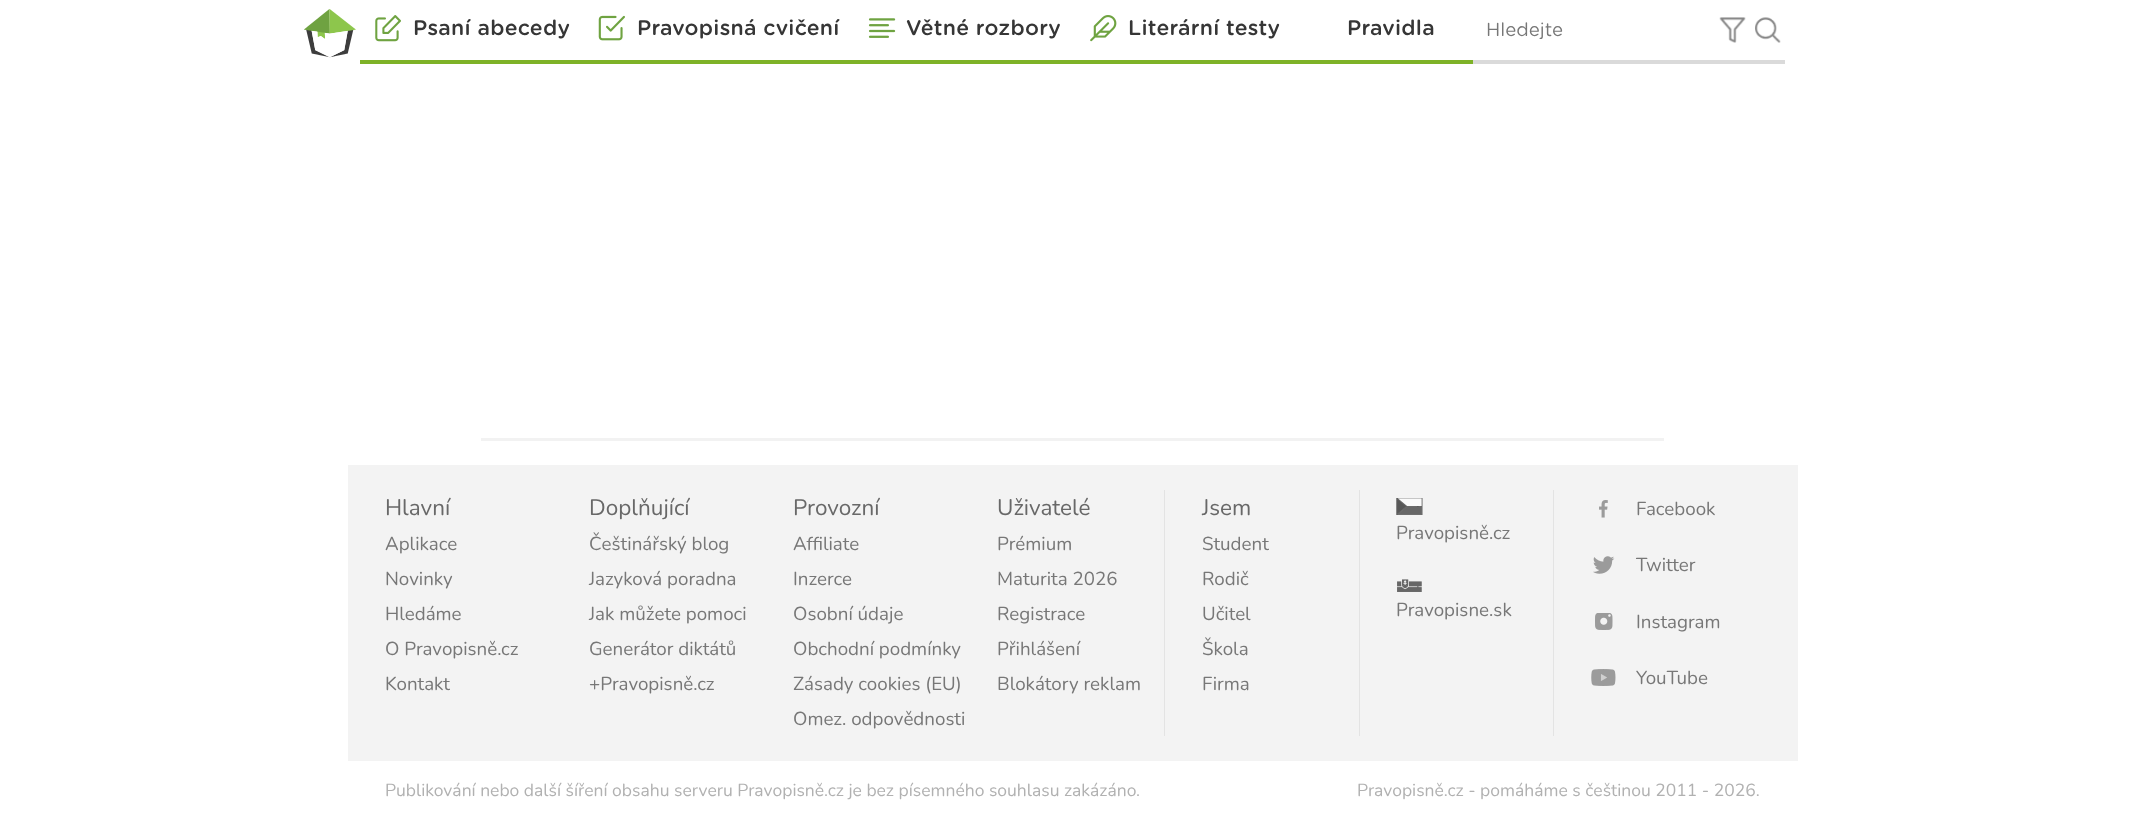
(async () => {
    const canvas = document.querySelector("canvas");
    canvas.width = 2144;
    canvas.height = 821;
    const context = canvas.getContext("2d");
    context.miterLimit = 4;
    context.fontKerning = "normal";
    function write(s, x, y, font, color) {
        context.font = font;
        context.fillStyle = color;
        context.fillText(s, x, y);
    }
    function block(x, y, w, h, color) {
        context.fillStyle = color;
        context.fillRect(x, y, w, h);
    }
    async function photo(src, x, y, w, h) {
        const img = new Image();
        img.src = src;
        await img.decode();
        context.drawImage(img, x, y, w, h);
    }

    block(0, 0, 2144, 821, "rgb(255, 255, 255)");
    block(360, 60, 1113, 4, "rgb(126, 178, 39)");
    await photo("media/1.png", 304, 9, 52, 49);
    await photo("media/2.png", 375, 15, 26, 27);
    context.letterSpacing = "0.25px";
    write("Psaní abecedy", 413, 35, "500 21.25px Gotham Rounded", "rgb(54, 54, 54)");
    await photo("media/3.png", 598, 15, 27, 26);
    write("Pravopisná cvičení", 637, 35, "500 21.25px Gotham Rounded", "rgb(54, 54, 54)");
    await photo("media/4.png", 868, 18, 28, 20);
    write("Větné rozbory", 906, 35, "500 21.25px Gotham Rounded", "rgb(54, 54, 54)");
    await photo("media/5.png", 1090, 15, 27, 27);
    write("Literární testy", 1128, 35, "500 21.25px Gotham Rounded", "rgb(54, 54, 54)");
    write("Pravidla", 1347, 35, "500 21.25px Gotham Rounded", "rgb(54, 54, 54)");
    context.letterSpacing = "0px";
    write("Hledejte", 1486, 36, "18.75px Gotham Rounded", "rgb(119, 119, 119)");
    await photo("media/6.png", 1719, 17, 27, 26);
    await photo("media/7.png", 1755, 17, 26, 26);
    block(1473, 60, 312, 4, "rgb(218, 218, 218)");
    block(481, 438, 1183, 3, "rgb(242, 242, 242)");
    block(348, 465, 1450, 296, "rgb(243, 243, 243)");
    write("Hlavní", 385, 515, "22.5px Nunito", "rgb(104, 104, 104)");
    write("Aplikace", 385, 550, "18.75px Nunito", "rgb(119, 119, 119)");
    write("Novinky", 385, 585, "18.75px Nunito", "rgb(119, 119, 119)");
    write("Hledáme", 385, 620, "18.75px Nunito", "rgb(119, 119, 119)");
    write("O Pravopisně.cz", 385, 655, "18.75px Nunito", "rgb(119, 119, 119)");
    write("Kontakt", 385, 690, "18.75px Nunito", "rgb(119, 119, 119)");
    write("Doplňující", 589, 515, "22.5px Nunito", "rgb(104, 104, 104)");
    write("Češtinářský blog", 589, 550, "18.75px Nunito", "rgb(119, 119, 119)");
    write("Jazyková poradna", 589, 585, "18.75px Nunito", "rgb(119, 119, 119)");
    write("Jak můžete pomoci", 589, 620, "18.75px Nunito", "rgb(119, 119, 119)");
    write("Generátor diktátů", 589, 655, "18.75px Nunito", "rgb(119, 119, 119)");
    write("+Pravopisně.cz", 589, 690, "18.75px Nunito", "rgb(119, 119, 119)");
    write("Provozní", 793, 515, "22.5px Nunito", "rgb(104, 104, 104)");
    write("Affiliate", 793, 550, "18.75px Nunito", "rgb(119, 119, 119)");
    write("Inzerce", 793, 585, "18.75px Nunito", "rgb(119, 119, 119)");
    write("Osobní údaje", 793, 620, "18.75px Nunito", "rgb(119, 119, 119)");
    write("Obchodní podmínky", 793, 655, "18.75px Nunito", "rgb(119, 119, 119)");
    write("Zásady cookies (EU)", 793, 690, "18.75px Nunito", "rgb(119, 119, 119)");
    write("Omez. odpovědnosti", 793, 725, "18.75px Nunito", "rgb(119, 119, 119)");
    write("Uživatelé", 997, 515, "22.5px Nunito", "rgb(104, 104, 104)");
    write("Prémium", 997, 550, "18.75px Nunito", "rgb(119, 119, 119)");
    write("Maturita 2026", 997, 585, "18.75px Nunito", "rgb(119, 119, 119)");
    write("Registrace", 997, 620, "18.75px Nunito", "rgb(119, 119, 119)");
    write("Přihlášení", 997, 655, "18.75px Nunito", "rgb(119, 119, 119)");
    write("Blokátory reklam", 997, 690, "18.75px Nunito", "rgb(119, 119, 119)");
    block(1164, 490, 1, 246, "rgb(227, 227, 227)");
    write("Jsem", 1202, 515, "22.5px Nunito", "rgb(104, 104, 104)");
    write("Student", 1202, 550, "18.75px Nunito", "rgb(119, 119, 119)");
    write("Rodič", 1202, 585, "18.75px Nunito", "rgb(119, 119, 119)");
    write("Učitel", 1202, 620, "18.75px Nunito", "rgb(119, 119, 119)");
    write("Škola", 1202, 655, "18.75px Nunito", "rgb(119, 119, 119)");
    write("Firma", 1202, 690, "18.75px Nunito", "rgb(119, 119, 119)");
    block(1359, 490, 1, 246, "rgb(227, 227, 227)");
    await photo("media/8.png", 1396, 498, 27, 17);
    write("Pravopisně.cz", 1396, 539, "18.75px Nunito", "rgb(119, 119, 119)");
    await photo("media/9.png", 1397, 579, 25, 13);
    write("Pravopisne.sk", 1396, 616, "18.75px Nunito", "rgb(119, 119, 119)");
    block(1553, 490, 1, 246, "rgb(227, 227, 227)");
    await photo("media/10.png", 1599, 500, 9, 18);
    write("Facebook", 1636, 515, "18.75px Nunito", "rgb(119, 119, 119)");
    await photo("media/11.png", 1593, 556, 22, 18);
    write("Twitter", 1636, 571, "18.75px Nunito", "rgb(119, 119, 119)");
    await photo("media/12.png", 1595, 613, 18, 17);
    write("Instagram", 1636, 628, "18.75px Nunito", "rgb(119, 119, 119)");
    await photo("media/13.png", 1591, 669, 25, 17);
    write("YouTube", 1636, 684, "18.75px Nunito", "rgb(119, 119, 119)");
    write("Publikování nebo další šíření obsahu serveru Pravopisně.cz je bez písemného souhlasu zakázáno.", 385, 796, "17.5px Nunito", "rgb(177, 177, 177)");
    write("Pravopisně.cz - pomáháme s češtinou 2011 - 2026.", 1357, 796, "17.5px Nunito", "rgb(177, 177, 177)");
})();
